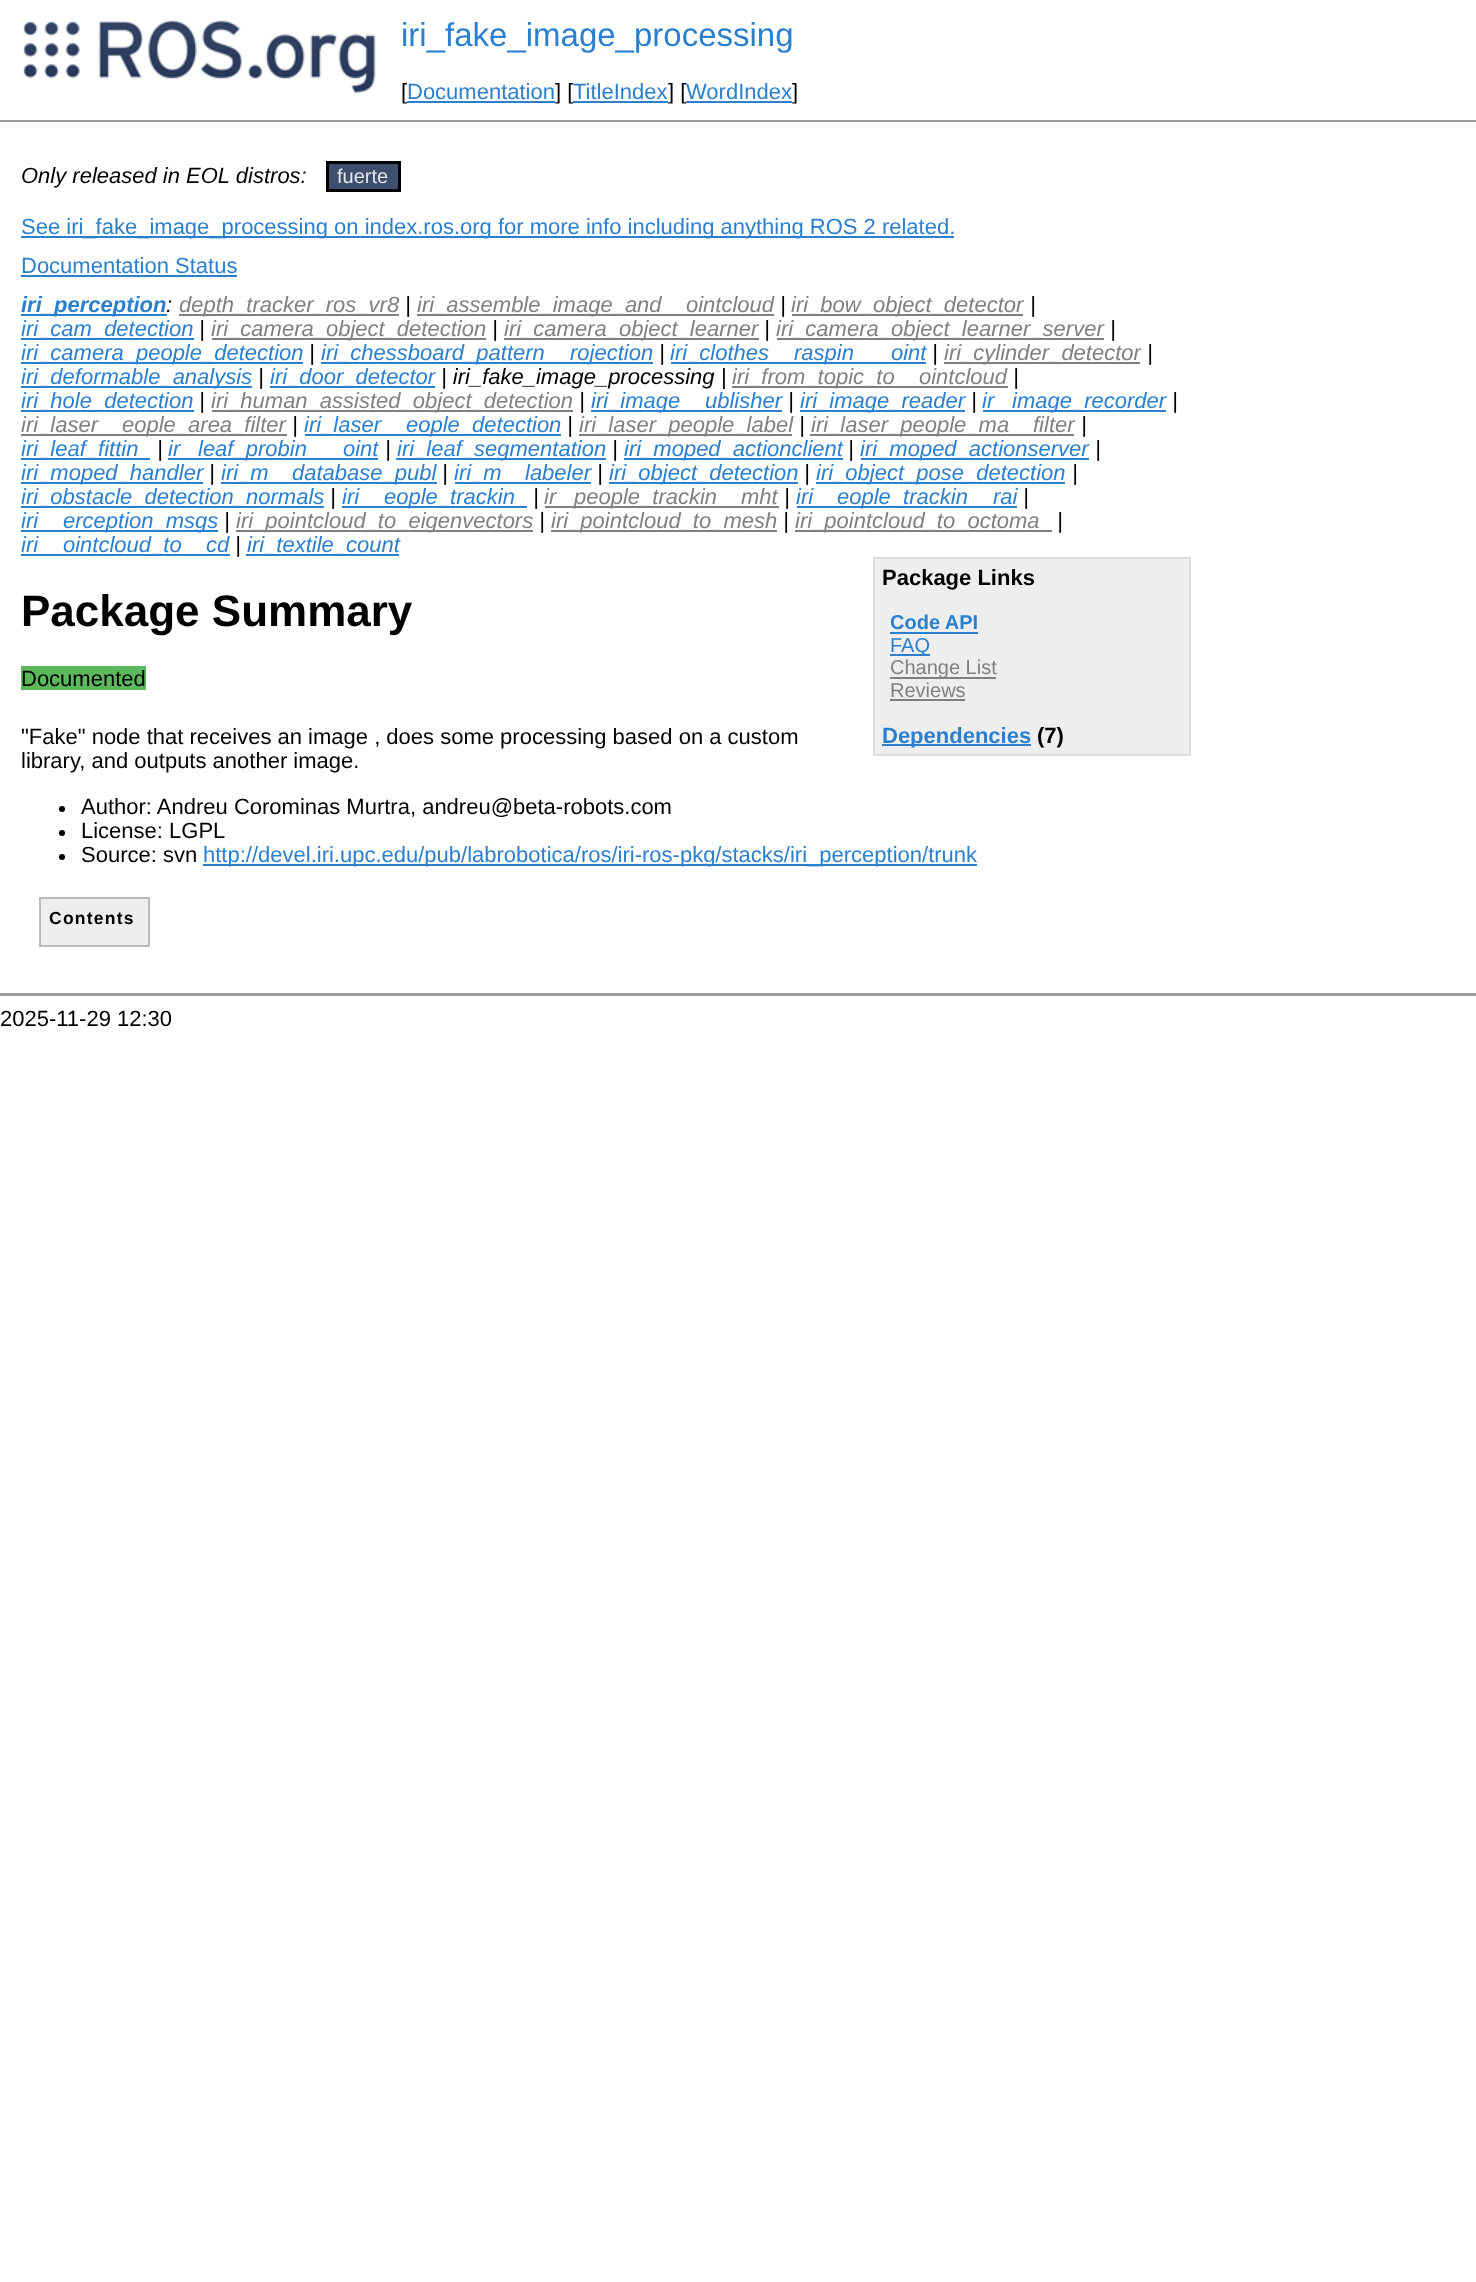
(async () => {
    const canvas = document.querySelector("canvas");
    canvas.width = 1476;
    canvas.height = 2282;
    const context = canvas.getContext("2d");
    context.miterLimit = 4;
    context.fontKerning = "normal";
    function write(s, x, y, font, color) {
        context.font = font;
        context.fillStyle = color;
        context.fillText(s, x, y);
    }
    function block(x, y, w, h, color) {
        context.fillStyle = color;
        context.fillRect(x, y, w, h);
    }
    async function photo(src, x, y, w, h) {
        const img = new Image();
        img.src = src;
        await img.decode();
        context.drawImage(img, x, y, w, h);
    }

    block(0, 0, 1476, 2282, "rgb(255, 255, 255)");
    await photo("media/1.png", 23, 20, 353, 74);
    write("iri_fake_image_processing", 401, 46, "33px Liberation Sans", "rgb(43, 127, 207)");
    write("[", 401, 99, "22px Liberation Sans", "rgb(0, 0, 0)");
    write("Documentation", 407, 99, "22px Liberation Sans", "rgb(43, 127, 207)");
    block(407, 101, 148, 2, "rgb(43, 127, 207)");
    write("] [", 555, 99, "22px Liberation Sans", "rgb(0, 0, 0)");
    write("TitleIndex", 573, 99, "22px Liberation Sans", "rgb(43, 127, 207)");
    block(573, 101, 95, 2, "rgb(43, 127, 207)");
    write("] [", 668, 99, "22px Liberation Sans", "rgb(0, 0, 0)");
    write("WordIndex", 686, 99, "22px Liberation Sans", "rgb(43, 127, 207)");
    block(686, 101, 106, 2, "rgb(43, 127, 207)");
    write("]", 792, 99, "22px Liberation Sans", "rgb(0, 0, 0)");
    block(0, 120, 1476, 2, "rgb(156, 156, 156)");
    write("Only released in EOL distros:", 21, 183, "italic 22px Liberation Sans", "rgb(0, 0, 0)");
    context.fillStyle = "rgb(62, 79, 110)";
    context.beginPath();
    context.rect(327.5, 162.5, 72, 28);
    context.fill();
    context.strokeStyle = "rgb(0, 0, 0)";
    context.lineWidth = 3;
    context.stroke();
    write("fuerte", 337, 183, "20px Liberation Sans", "rgb(230, 230, 230)");
    block(21, 236, 933, 2, "rgb(43, 127, 207)");
    write("See iri_fake_image_processing on index.ros.org for more info including anything ROS 2 related.", 21, 234, "22px Liberation Sans", "rgb(43, 127, 207)");
    write("Documentation Status", 21, 273, "22px Liberation Sans", "rgb(43, 127, 207)");
    block(21, 275, 216, 2, "rgb(43, 127, 207)");
    block(21, 314, 146, 2, "rgb(43, 127, 207)");
    write("iri_perception", 21, 312, "italic bold 22px Liberation Sans", "rgb(43, 127, 207)");
    write(":", 166, 312, "italic 22px Liberation Sans", "rgb(0, 0, 0)");
    block(179, 314, 220, 2, "rgb(128, 128, 128)");
    write("depth_tracker_ros_vr8", 179, 312, "italic 22px Liberation Sans", "rgb(128, 128, 128)");
    write("|", 405, 312, "italic 22px Liberation Sans", "rgb(0, 0, 0)");
    block(417, 314, 357, 2, "rgb(128, 128, 128)");
    write("iri_assemble_image_and", 417, 312, "italic 22px Liberation Sans", "rgb(128, 128, 128)");
    write("ointcloud", 686, 312, "italic 22px Liberation Sans", "rgb(128, 128, 128)");
    write("|", 780, 312, "italic 22px Liberation Sans", "rgb(0, 0, 0)");
    block(792, 314, 231, 2, "rgb(128, 128, 128)");
    write("iri_bow_object_detector", 791, 312, "italic 22px Liberation Sans", "rgb(128, 128, 128)");
    write("|", 1030, 312, "italic 22px Liberation Sans", "rgb(0, 0, 0)");
    block(21, 338, 173, 2, "rgb(43, 127, 207)");
    write("iri_cam_detection", 21, 336, "italic 22px Liberation Sans", "rgb(43, 127, 207)");
    write("|", 199, 336, "italic 22px Liberation Sans", "rgb(0, 0, 0)");
    block(212, 338, 274, 2, "rgb(128, 128, 128)");
    write("iri_camera_object_detection", 211, 336, "italic 22px Liberation Sans", "rgb(128, 128, 128)");
    write("|", 492, 336, "italic 22px Liberation Sans", "rgb(0, 0, 0)");
    block(504, 338, 255, 2, "rgb(128, 128, 128)");
    write("iri_camera_object_learner", 504, 336, "italic 22px Liberation Sans", "rgb(128, 128, 128)");
    write("|", 764, 336, "italic 22px Liberation Sans", "rgb(0, 0, 0)");
    block(777, 338, 327, 2, "rgb(128, 128, 128)");
    write("iri_camera_object_learner_server", 776, 336, "italic 22px Liberation Sans", "rgb(128, 128, 128)");
    write("|", 1110, 336, "italic 22px Liberation Sans", "rgb(0, 0, 0)");
    block(21, 362, 282, 2, "rgb(43, 127, 207)");
    write("iri_camera_people_detection", 21, 360, "italic 22px Liberation Sans", "rgb(43, 127, 207)");
    write("|", 309, 360, "italic 22px Liberation Sans", "rgb(0, 0, 0)");
    block(321, 362, 332, 2, "rgb(43, 127, 207)");
    write("iri_chessboard_pattern", 321, 360, "italic 22px Liberation Sans", "rgb(43, 127, 207)");
    write("rojection", 570, 360, "italic 22px Liberation Sans", "rgb(43, 127, 207)");
    write("|", 659, 360, "italic 22px Liberation Sans", "rgb(0, 0, 0)");
    block(671, 362, 255, 2, "rgb(43, 127, 207)");
    write("iri_clothes", 670, 360, "italic 22px Liberation Sans", "rgb(43, 127, 207)");
    write("raspin", 794, 360, "italic 22px Liberation Sans", "rgb(43, 127, 207)");
    write("oint", 891, 360, "italic 22px Liberation Sans", "rgb(43, 127, 207)");
    write("|", 932, 360, "italic 22px Liberation Sans", "rgb(0, 0, 0)");
    block(944, 362, 196, 2, "rgb(128, 128, 128)");
    write("iri_cylinder_detector", 944, 360, "italic 22px Liberation Sans", "rgb(128, 128, 128)");
    write("|", 1147, 360, "italic 22px Liberation Sans", "rgb(0, 0, 0)");
    block(21, 386, 231, 2, "rgb(43, 127, 207)");
    write("iri_deformable_analysis", 21, 384, "italic 22px Liberation Sans", "rgb(43, 127, 207)");
    write("|", 258, 384, "italic 22px Liberation Sans", "rgb(0, 0, 0)");
    block(270, 386, 165, 2, "rgb(43, 127, 207)");
    write("iri_door_detector", 270, 384, "italic 22px Liberation Sans", "rgb(43, 127, 207)");
    write("| iri_fake_image_processing |", 441, 384, "italic 22px Liberation Sans", "rgb(0, 0, 0)");
    block(732, 386, 276, 2, "rgb(128, 128, 128)");
    write("iri_from_topic_to", 732, 384, "italic 22px Liberation Sans", "rgb(128, 128, 128)");
    write("ointcloud", 919, 384, "italic 22px Liberation Sans", "rgb(128, 128, 128)");
    write("|", 1013, 384, "italic 22px Liberation Sans", "rgb(0, 0, 0)");
    block(21, 410, 173, 2, "rgb(43, 127, 207)");
    write("iri_hole_detection", 21, 408, "italic 22px Liberation Sans", "rgb(43, 127, 207)");
    write("|", 199, 408, "italic 22px Liberation Sans", "rgb(0, 0, 0)");
    block(212, 410, 361, 2, "rgb(128, 128, 128)");
    write("iri_human_assisted_object_detection", 211, 408, "italic 22px Liberation Sans", "rgb(128, 128, 128)");
    write("|", 579, 408, "italic 22px Liberation Sans", "rgb(0, 0, 0)");
    block(591, 410, 191, 2, "rgb(43, 127, 207)");
    write("iri_image", 591, 408, "italic 22px Liberation Sans", "rgb(43, 127, 207)");
    write("ublisher", 705, 408, "italic 22px Liberation Sans", "rgb(43, 127, 207)");
    write("|", 788, 408, "italic 22px Liberation Sans", "rgb(0, 0, 0)");
    block(800, 410, 165, 2, "rgb(43, 127, 207)");
    write("iri_image_reader", 800, 408, "italic 22px Liberation Sans", "rgb(43, 127, 207)");
    write("|", 971, 408, "italic 22px Liberation Sans", "rgb(0, 0, 0)");
    write("ir", 982, 408, "italic 22px Liberation Sans", "rgb(43, 127, 207)");
    block(983, 410, 183, 2, "rgb(43, 127, 207)");
    write("image_recorder", 1012, 408, "italic 22px Liberation Sans", "rgb(43, 127, 207)");
    write("|", 1172, 408, "italic 22px Liberation Sans", "rgb(0, 0, 0)");
    block(21, 434, 266, 2, "rgb(128, 128, 128)");
    write("iri_laser", 21, 432, "italic 22px Liberation Sans", "rgb(128, 128, 128)");
    write("eople_area_filter", 122, 432, "italic 22px Liberation Sans", "rgb(128, 128, 128)");
    write("|", 292, 432, "italic 22px Liberation Sans", "rgb(0, 0, 0)");
    block(305, 434, 256, 2, "rgb(43, 127, 207)");
    write("iri_laser", 304, 432, "italic 22px Liberation Sans", "rgb(43, 127, 207)");
    write("eople_detection", 406, 432, "italic 22px Liberation Sans", "rgb(43, 127, 207)");
    write("|", 567, 432, "italic 22px Liberation Sans", "rgb(0, 0, 0)");
    block(579, 434, 213, 2, "rgb(128, 128, 128)");
    write("iri_laser_people_label", 579, 432, "italic 22px Liberation Sans", "rgb(128, 128, 128)");
    write("|", 799, 432, "italic 22px Liberation Sans", "rgb(0, 0, 0)");
    block(810, 434, 264, 2, "rgb(128, 128, 128)");
    write("iri_laser_people_ma", 811, 432, "italic 22px Liberation Sans", "rgb(128, 128, 128)");
    write("filter", 1033, 432, "italic 22px Liberation Sans", "rgb(128, 128, 128)");
    write("|", 1081, 432, "italic 22px Liberation Sans", "rgb(0, 0, 0)");
    block(21, 458, 129, 2, "rgb(43, 127, 207)");
    write("iri_leaf_fittin", 21, 456, "italic 22px Liberation Sans", "rgb(43, 127, 207)");
    write("|", 157, 456, "italic 22px Liberation Sans", "rgb(0, 0, 0)");
    write("ir", 168, 456, "italic 22px Liberation Sans", "rgb(43, 127, 207)");
    block(168, 458, 210, 2, "rgb(43, 127, 207)");
    write("leaf_probin", 198, 456, "italic 22px Liberation Sans", "rgb(43, 127, 207)");
    write("oint", 343, 456, "italic 22px Liberation Sans", "rgb(43, 127, 207)");
    write("|", 385, 456, "italic 22px Liberation Sans", "rgb(0, 0, 0)");
    block(396, 458, 210, 2, "rgb(43, 127, 207)");
    write("iri_leaf_segmentation", 397, 456, "italic 22px Liberation Sans", "rgb(43, 127, 207)");
    write("|", 612, 456, "italic 22px Liberation Sans", "rgb(0, 0, 0)");
    block(624, 458, 219, 2, "rgb(43, 127, 207)");
    write("iri_moped_actionclient", 624, 456, "italic 22px Liberation Sans", "rgb(43, 127, 207)");
    write("|", 848, 456, "italic 22px Liberation Sans", "rgb(0, 0, 0)");
    block(861, 458, 228, 2, "rgb(43, 127, 207)");
    write("iri_moped_actionserver", 860, 456, "italic 22px Liberation Sans", "rgb(43, 127, 207)");
    write("|", 1095, 456, "italic 22px Liberation Sans", "rgb(0, 0, 0)");
    block(21, 482, 182, 2, "rgb(43, 127, 207)");
    write("iri_moped_handler", 21, 480, "italic 22px Liberation Sans", "rgb(43, 127, 207)");
    write("|", 209, 480, "italic 22px Liberation Sans", "rgb(0, 0, 0)");
    block(221, 482, 216, 2, "rgb(43, 127, 207)");
    write("iri_m", 221, 480, "italic 22px Liberation Sans", "rgb(43, 127, 207)");
    write("database_publ", 292, 480, "italic 22px Liberation Sans", "rgb(43, 127, 207)");
    write("|", 442, 480, "italic 22px Liberation Sans", "rgb(0, 0, 0)");
    block(455, 482, 136, 2, "rgb(43, 127, 207)");
    write("iri_m", 454, 480, "italic 22px Liberation Sans", "rgb(43, 127, 207)");
    write("labeler", 525, 480, "italic 22px Liberation Sans", "rgb(43, 127, 207)");
    write("|", 597, 480, "italic 22px Liberation Sans", "rgb(0, 0, 0)");
    block(609, 482, 189, 2, "rgb(43, 127, 207)");
    write("iri_object_detection", 609, 480, "italic 22px Liberation Sans", "rgb(43, 127, 207)");
    write("|", 804, 480, "italic 22px Liberation Sans", "rgb(0, 0, 0)");
    block(816, 482, 249, 2, "rgb(43, 127, 207)");
    write("iri_object_pose_detection", 816, 480, "italic 22px Liberation Sans", "rgb(43, 127, 207)");
    write("|", 1072, 480, "italic 22px Liberation Sans", "rgb(0, 0, 0)");
    block(21, 506, 303, 2, "rgb(43, 127, 207)");
    write("iri_obstacle_detection_normals", 21, 504, "italic 22px Liberation Sans", "rgb(43, 127, 207)");
    write("|", 330, 504, "italic 22px Liberation Sans", "rgb(0, 0, 0)");
    write("iri", 342, 504, "italic 22px Liberation Sans", "rgb(43, 127, 207)");
    block(342, 506, 185, 2, "rgb(43, 127, 207)");
    write("eople_trackin", 384, 504, "italic 22px Liberation Sans", "rgb(43, 127, 207)");
    write("|", 533, 504, "italic 22px Liberation Sans", "rgb(0, 0, 0)");
    write("ir", 544, 504, "italic 22px Liberation Sans", "rgb(128, 128, 128)");
    block(545, 506, 234, 2, "rgb(128, 128, 128)");
    write("people_trackin", 574, 504, "italic 22px Liberation Sans", "rgb(128, 128, 128)");
    write("mht", 741, 504, "italic 22px Liberation Sans", "rgb(128, 128, 128)");
    write("|", 784, 504, "italic 22px Liberation Sans", "rgb(0, 0, 0)");
    write("iri", 796, 504, "italic 22px Liberation Sans", "rgb(43, 127, 207)");
    block(797, 506, 220, 2, "rgb(43, 127, 207)");
    write("eople_trackin", 837, 504, "italic 22px Liberation Sans", "rgb(43, 127, 207)");
    write("rai", 993, 504, "italic 22px Liberation Sans", "rgb(43, 127, 207)");
    write("|", 1023, 504, "italic 22px Liberation Sans", "rgb(0, 0, 0)");
    write("iri", 21, 528, "italic 22px Liberation Sans", "rgb(43, 127, 207)");
    block(21, 530, 197, 2, "rgb(43, 127, 207)");
    write("erception_msgs", 63, 528, "italic 22px Liberation Sans", "rgb(43, 127, 207)");
    write("|", 224, 528, "italic 22px Liberation Sans", "rgb(0, 0, 0)");
    block(236, 530, 297, 2, "rgb(128, 128, 128)");
    write("iri_pointcloud_to_eigenvectors", 236, 528, "italic 22px Liberation Sans", "rgb(128, 128, 128)");
    write("|", 539, 528, "italic 22px Liberation Sans", "rgb(0, 0, 0)");
    block(551, 530, 226, 2, "rgb(128, 128, 128)");
    write("iri_pointcloud_to_mesh", 551, 528, "italic 22px Liberation Sans", "rgb(128, 128, 128)");
    write("|", 783, 528, "italic 22px Liberation Sans", "rgb(0, 0, 0)");
    block(795, 530, 257, 2, "rgb(128, 128, 128)");
    write("iri_pointcloud_to_octoma", 795, 528, "italic 22px Liberation Sans", "rgb(128, 128, 128)");
    write("|", 1057, 528, "italic 22px Liberation Sans", "rgb(0, 0, 0)");
    write("iri", 21, 552, "italic 22px Liberation Sans", "rgb(43, 127, 207)");
    block(21, 554, 209, 2, "rgb(43, 127, 207)");
    write("ointcloud_to", 63, 552, "italic 22px Liberation Sans", "rgb(43, 127, 207)");
    write("cd", 206, 552, "italic 22px Liberation Sans", "rgb(43, 127, 207)");
    write("|", 235, 552, "italic 22px Liberation Sans", "rgb(0, 0, 0)");
    block(246, 554, 153, 2, "rgb(43, 127, 207)");
    write("iri_textile_count", 247, 552, "italic 22px Liberation Sans", "rgb(43, 127, 207)");
    write("Package Summary", 21, 626, "bold 44px Liberation Sans", "rgb(0, 0, 0)");
    context.fillStyle = "rgb(238, 238, 238)";
    context.beginPath();
    context.rect(874, 558, 316, 197);
    context.fill();
    context.strokeStyle = "rgb(221, 221, 221)";
    context.lineWidth = 2;
    context.stroke();
    write("Package Links", 882, 585, "bold 22px Liberation Sans", "rgb(0, 0, 0)");
    write("Code API", 890, 629, "bold 20px Liberation Sans", "rgb(43, 127, 207)");
    block(890, 632, 88, 2, "rgb(43, 127, 207)");
    block(890, 654, 40, 2, "rgb(43, 127, 207)");
    write("FAQ", 890, 652, "20px Liberation Sans", "rgb(43, 127, 207)");
    block(890, 677, 106, 2, "rgb(128, 128, 128)");
    write("Change List", 890, 674, "20px Liberation Sans", "rgb(128, 128, 128)");
    write("Reviews", 890, 697, "20px Liberation Sans", "rgb(128, 128, 128)");
    block(890, 699, 75, 2, "rgb(128, 128, 128)");
    block(882, 744, 149, 2, "rgb(43, 127, 207)");
    write("Dependencies", 882, 743, "bold 22px Liberation Sans", "rgb(43, 127, 207)");
    write("(7)", 1037, 743, "bold 22px Liberation Sans", "rgb(0, 0, 0)");
    block(21, 666, 125, 24, "rgb(92, 184, 92)");
    write("Documented", 21, 686, "22px Liberation Sans", "rgb(0, 0, 0)");
    write("\"Fake\" node that receives an image , does some processing based on a custom", 21, 744, "22px Liberation Sans", "rgb(0, 0, 0)");
    write("library, and outputs another image.", 21, 768, "22px Liberation Sans", "rgb(0, 0, 0)");
    context.beginPath();
    context.arc(62, 809, 3, 0, Math.PI * 2);
    context.fill();
    write("Author: Andreu Corominas Murtra, andreu@beta-robots.com", 81, 814, "22px Liberation Sans", "rgb(0, 0, 0)");
    context.beginPath();
    context.arc(62, 833, 3, 0, Math.PI * 2);
    context.fill();
    write("License: LGPL", 81, 838, "22px Liberation Sans", "rgb(0, 0, 0)");
    context.beginPath();
    context.arc(62, 857, 3, 0, Math.PI * 2);
    context.fill();
    write("Source: svn", 81, 862, "22px Liberation Sans", "rgb(0, 0, 0)");
    block(203, 864, 774, 2, "rgb(43, 127, 207)");
    write("http://devel.iri.upc.edu/pub/labrobotica/ros/iri-ros-pkg/stacks/iri_perception/trunk", 203, 862, "22px Liberation Sans", "rgb(43, 127, 207)");
    context.fillStyle = "rgb(238, 238, 238)";
    context.beginPath();
    context.rect(40, 898, 109, 48);
    context.fill();
    context.strokeStyle = "rgb(187, 187, 187)";
    context.stroke();
    context.letterSpacing = "1.25px";
    write("Contents", 49, 924, "bold 17.5px Liberation Sans", "rgb(0, 0, 0)");
    block(0, 993, 1476, 3, "rgb(156, 156, 156)");
    context.letterSpacing = "0px";
    write("2025-11-29 12:30", 0, 1026, "22px Liberation Sans", "rgb(0, 0, 0)");
})();
